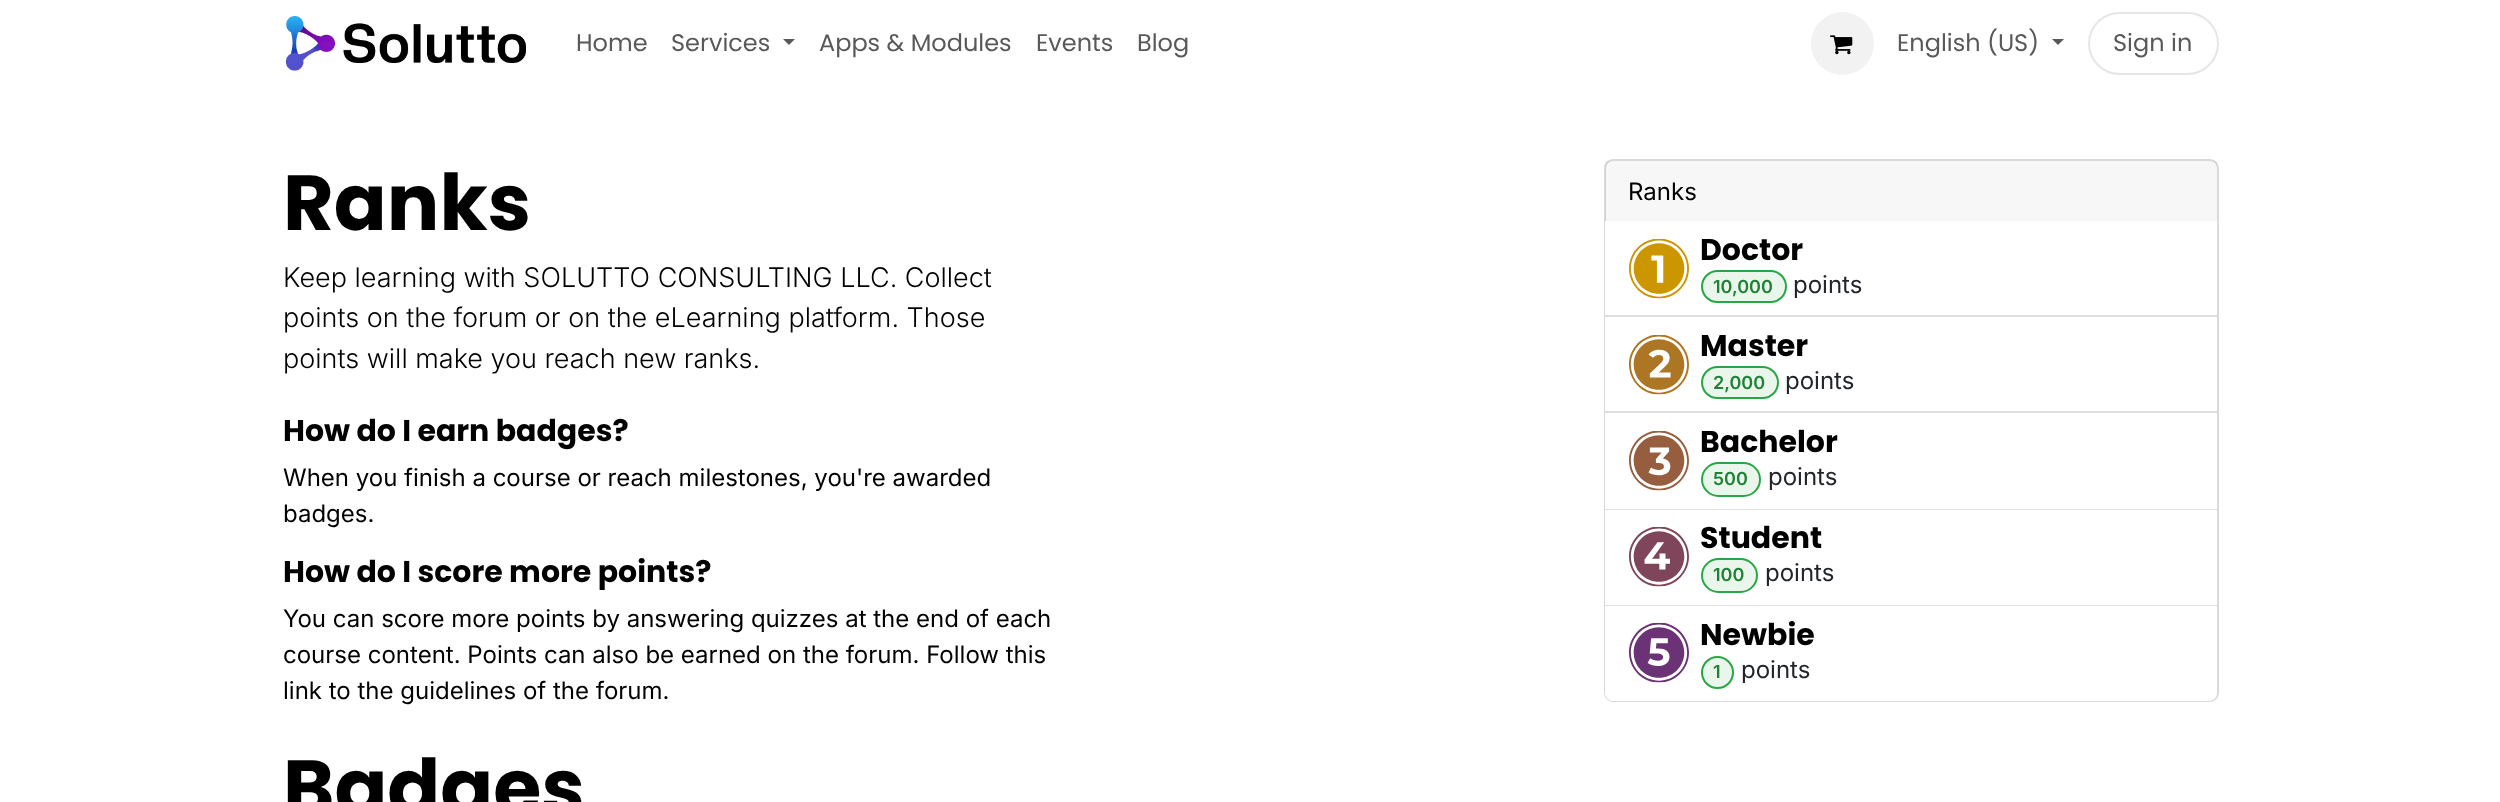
(async () => {
    const canvas = document.querySelector("canvas");
    canvas.width = 2500;
    canvas.height = 802;
    const context = canvas.getContext("2d");
    context.miterLimit = 4;
    context.fontKerning = "normal";
    function write(s, x, y, font, color) {
        context.font = font;
        context.fillStyle = color;
        context.fillText(s, x, y);
    }
    function block(x, y, w, h, color) {
        context.fillStyle = color;
        context.fillRect(x, y, w, h);
    }
    async function photo(src, x, y, w, h) {
        const img = new Image();
        img.src = src;
        await img.decode();
        context.drawImage(img, x, y, w, h);
    }

    block(0, 0, 2500, 802, "rgb(255, 255, 255)");
    await photo("media/1.png", 285, 16, 241, 55);
    write("Home", 576, 51, "24px Poppins", "rgb(89, 89, 89)");
    write("Services", 671, 51, "24px Poppins", "rgb(89, 89, 89)");
    context.beginPath();
    context.moveTo(783, 39);
    context.lineTo(795, 39);
    context.lineTo(789, 45);
    context.closePath();
    context.fill();
    write("Apps & Modules", 819, 51, "24px Poppins", "rgb(89, 89, 89)");
    write("Events", 1036, 51, "24px Poppins", "rgb(89, 89, 89)");
    write("Blog", 1137, 51, "24px Poppins", "rgb(89, 89, 89)");
    context.fillStyle = "rgb(242, 242, 242)";
    context.beginPath();
    context.arc(1842.5, 43.5, 31.5, 0, Math.PI * 2);
    context.fill();
    await photo("media/2.png", 1830, 35, 23, 20);
    write("English (US)", 1897, 51, "24px Poppins", "rgb(89, 89, 89)");
    context.beginPath();
    context.moveTo(2052, 39);
    context.lineTo(2064, 39);
    context.lineTo(2058, 45);
    context.closePath();
    context.fill();
    context.beginPath();
    context.roundRect(2089, 13, 129, 61, 30.5);
    context.strokeStyle = "rgb(230, 230, 230)";
    context.lineWidth = 2;
    context.stroke();
    write("Sign in", 2113, 51, "24px Poppins", "rgb(89, 89, 89)");
    write("Ranks", 283, 230, "bold 78px Poppins", "rgb(0, 0, 0)");
    write("Keep learning with SOLUTTO CONSULTING LLC. Collect", 283, 287, "300 27px Inter", "rgb(0, 0, 0)");
    write("points on the forum or on the eLearning platform. Those", 283, 327, "300 27px Inter", "rgb(0, 0, 0)");
    write("points will make you reach new ranks.", 283, 368, "300 27px Inter", "rgb(0, 0, 0)");
    write("How do I earn badges?", 283, 441, "bold 30px Poppins", "rgb(0, 0, 0)");
    write("When you finish a course or reach milestones, you're awarded", 283, 486, "24px Inter", "rgb(0, 0, 0)");
    write("badges.", 283, 522, "24px Inter", "rgb(0, 0, 0)");
    write("How do I score more points?", 283, 582, "bold 30px Poppins", "rgb(0, 0, 0)");
    write("You can score more points by answering quizzes at the end of each", 283, 627, "24px Inter", "rgb(0, 0, 0)");
    write("course content. Points can also be earned on the forum. Follow this", 283, 663, "24px Inter", "rgb(0, 0, 0)");
    write("link to the guidelines of the forum.", 283, 699, "24px Inter", "rgb(0, 0, 0)");
    context.beginPath();
    context.roundRect(1605, 160, 613, 541, 8);
    context.strokeStyle = "rgb(217, 217, 217)";
    context.stroke();
    block(1605, 161, 612, 60, "rgba(0, 0, 0, 0.03)");
    write("Ranks", 1628, 200, "24px Inter", "rgb(0, 0, 0)");
    block(1605, 221, 1, 94, "rgb(255, 255, 255)");
    block(1605, 315, 612, 2, "rgb(222, 222, 223)");
    await photo("media/3.png", 1629, 239, 60, 60);
    write("Doctor", 1700, 260, "bold 30px Poppins", "rgb(0, 0, 0)");
    context.fillStyle = "rgb(234, 246, 236)";
    context.beginPath();
    context.roundRect(1702, 271, 84, 31, 15.5);
    context.fill();
    context.strokeStyle = "rgb(40, 167, 69)";
    context.stroke();
    write("10,000", 1713, 293, "600 18px Inter", "rgb(31, 130, 54)");
    write("points", 1793, 293, "24px Inter", "rgb(33, 37, 41)");
    block(1605, 317, 1, 94, "rgb(255, 255, 255)");
    block(1605, 411, 612, 2, "rgb(222, 222, 223)");
    await photo("media/4.png", 1629, 335, 60, 60);
    write("Master", 1700, 356, "bold 30px Poppins", "rgb(0, 0, 0)");
    context.fillStyle = "rgb(234, 246, 236)";
    context.beginPath();
    context.roundRect(1702, 367, 76, 31, 15.5);
    context.fill();
    context.stroke();
    write("2,000", 1713, 389, "600 18px Inter", "rgb(31, 130, 54)");
    write("points", 1785, 389, "24px Inter", "rgb(33, 37, 41)");
    block(1605, 413, 1, 193, "rgb(255, 255, 255)");
    block(1605, 509, 612, 1, "rgba(33, 37, 41, 0.15)");
    await photo("media/5.png", 1629, 431, 60, 60);
    write("Bachelor", 1700, 452, "bold 30px Poppins", "rgb(0, 0, 0)");
    context.fillStyle = "rgb(234, 246, 236)";
    context.beginPath();
    context.roundRect(1702, 463, 58, 33, 16.5);
    context.fill();
    context.stroke();
    write("500", 1713, 485, "600 18px Inter", "rgb(31, 130, 54)");
    write("points", 1768, 485, "24px Inter", "rgb(33, 37, 41)");
    block(1605, 605, 612, 1, "rgba(33, 37, 41, 0.15)");
    await photo("media/6.png", 1629, 527, 60, 60);
    write("Student", 1700, 548, "bold 30px Poppins", "rgb(0, 0, 0)");
    context.fillStyle = "rgb(234, 246, 236)";
    context.beginPath();
    context.roundRect(1702, 559, 55, 33, 16.5);
    context.fill();
    context.stroke();
    write("100", 1713, 581, "600 18px Inter", "rgb(31, 130, 54)");
    write("points", 1765, 581, "24px Inter", "rgb(33, 37, 41)");
    context.fillStyle = "rgb(255, 255, 255)";
    context.beginPath();
    context.roundRect(1605, 606, 612, 95, [0, 0, 8, 8]);
    context.fill();
    await photo("media/7.png", 1629, 623, 60, 60);
    write("Newbie", 1700, 645, "bold 30px Poppins", "rgb(0, 0, 0)");
    context.fillStyle = "rgb(234, 246, 236)";
    context.beginPath();
    context.arc(1717.5, 672.5, 15.5, 0, Math.PI * 2);
    context.fill();
    context.stroke();
    write("1", 1713, 678, "600 18px Inter", "rgb(31, 130, 54)");
    write("points", 1741, 678, "24px Inter", "rgb(33, 37, 41)");
    write("Badges", 283, 815, "bold 78px Poppins", "rgb(0, 0, 0)");
})();
